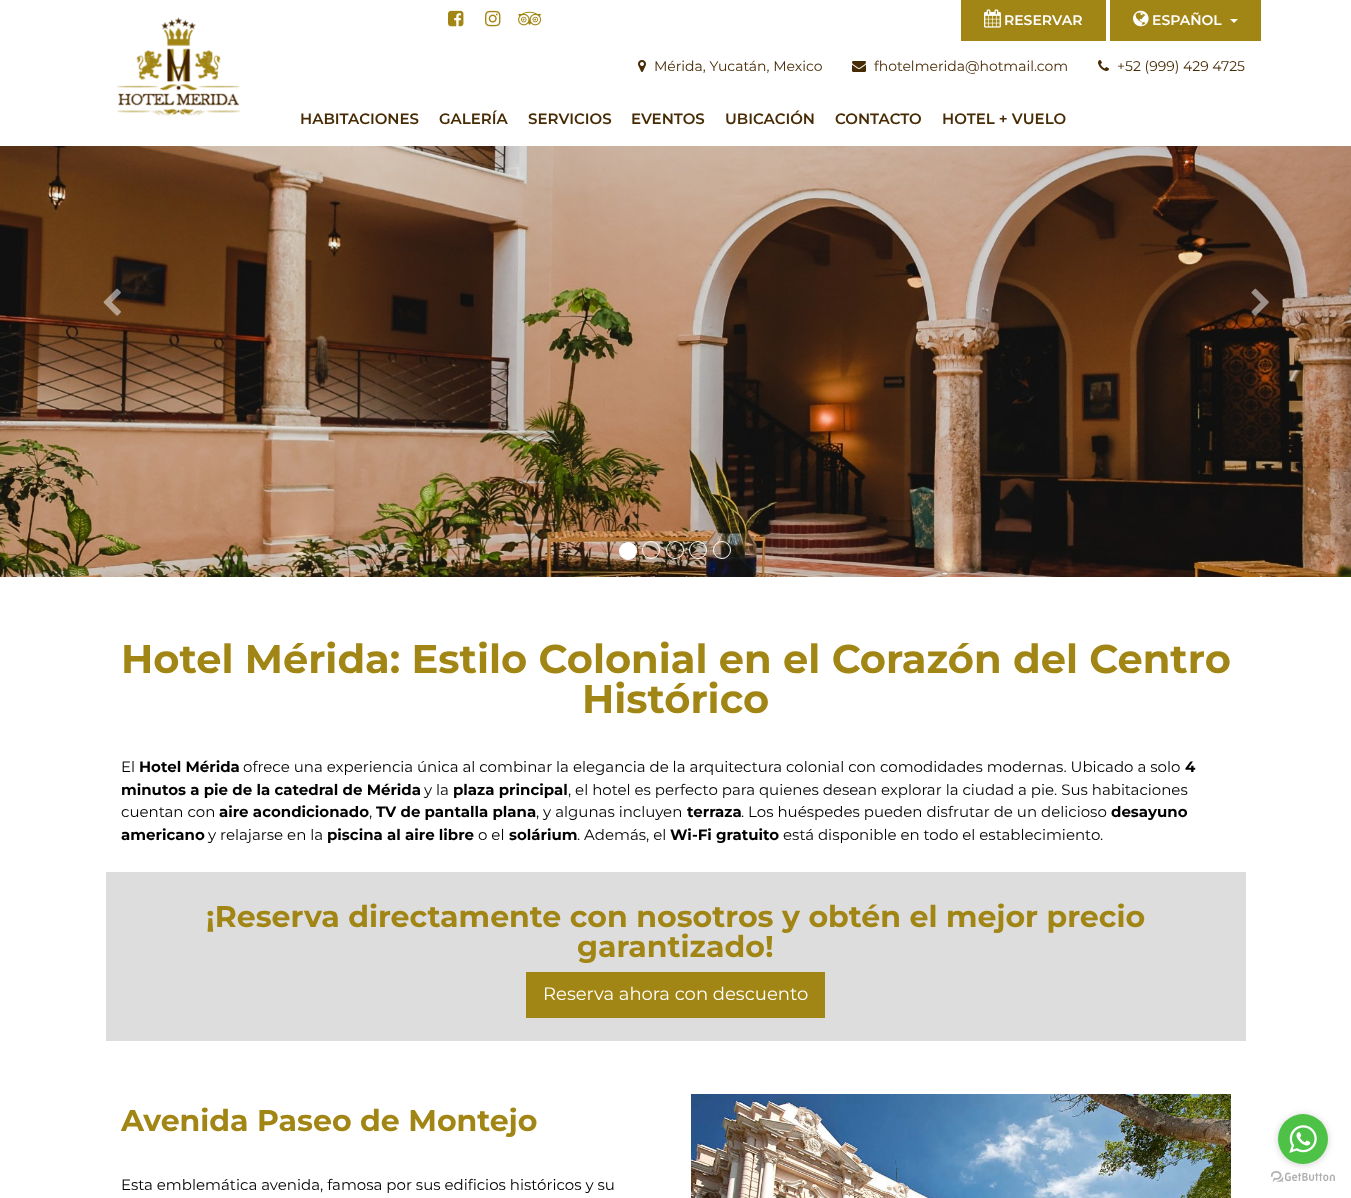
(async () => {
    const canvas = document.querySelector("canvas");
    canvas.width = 1351;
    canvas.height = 1198;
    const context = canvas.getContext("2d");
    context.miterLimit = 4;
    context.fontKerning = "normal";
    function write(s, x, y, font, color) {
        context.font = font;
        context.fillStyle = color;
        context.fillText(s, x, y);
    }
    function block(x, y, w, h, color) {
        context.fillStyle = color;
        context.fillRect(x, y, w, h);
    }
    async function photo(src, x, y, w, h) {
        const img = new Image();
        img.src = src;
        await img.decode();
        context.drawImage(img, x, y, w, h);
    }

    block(0, 0, 1351, 1198, "rgb(255, 255, 255)");
    await photo("media/1.png", 448, 10, 16, 17);
    await photo("media/2.png", 485, 10, 16, 17);
    await photo("media/3.png", 518, 11, 24, 15);
    block(961, 0, 145, 41, "rgb(162, 134, 21)");
    await photo("media/4.png", 984, 9, 17, 19);
    write("RESERVAR", 1004, 25, "600 14px Montserrat", "rgb(255, 255, 255)");
    block(1110, 0, 151, 41, "rgb(162, 134, 21)");
    await photo("media/5.png", 1133, 10, 16, 17);
    write("ESPAÑOL", 1152, 25, "600 14px Montserrat", "rgb(255, 255, 255)");
    context.beginPath();
    context.moveTo(1230, 19);
    context.lineTo(1238, 19);
    context.lineTo(1234, 23);
    context.closePath();
    context.fill();
    await photo("media/6.png", 116, 17, 125, 99);
    await photo("media/7.png", 638, 60, 8, 12);
    write("Mérida, Yucatán, Mexico", 654, 71, "14px Montserrat", "rgb(71, 43, 5)");
    await photo("media/8.png", 852, 61, 14, 11);
    write("fhotelmerida@hotmail.com", 874, 71, "14px Montserrat", "rgb(71, 43, 5)");
    await photo("media/9.png", 1098, 60, 11, 11);
    write("+52 (999) 429 4725", 1117, 71, "14px Montserrat", "rgb(71, 43, 5)");
    write("HABITACIONES", 300, 124, "600 15px Montserrat", "rgb(71, 43, 5)");
    write("GALERÍA", 439, 124, "600 15px Montserrat", "rgb(71, 43, 5)");
    write("SERVICIOS", 528, 124, "600 15px Montserrat", "rgb(71, 43, 5)");
    write("EVENTOS", 631, 124, "600 15px Montserrat", "rgb(71, 43, 5)");
    write("UBICACIÓN", 725, 124, "600 15px Montserrat", "rgb(71, 43, 5)");
    write("CONTACTO", 835, 124, "600 15px Montserrat", "rgb(71, 43, 5)");
    write("HOTEL + VUELO", 942, 124, "600 15px Montserrat", "rgb(71, 43, 5)");
    await photo("media/10.png", 0, 146, 1351, 431);
    await photo("media/11.png", 103, 288, 18, 28);
    await photo("media/12.png", 1251, 288, 18, 28);
    context.fillStyle = "rgb(255, 255, 255)";
    context.beginPath();
    context.arc(628, 551, 8.5, 0, Math.PI * 2);
    context.fill();
    context.strokeStyle = "rgb(255, 255, 255)";
    context.stroke();
    context.beginPath();
    context.arc(651, 550, 8.5, 0, Math.PI * 2);
    context.stroke();
    context.beginPath();
    context.arc(675, 550, 8.5, 0, Math.PI * 2);
    context.stroke();
    context.beginPath();
    context.arc(698, 550, 8.5, 0, Math.PI * 2);
    context.stroke();
    context.beginPath();
    context.arc(722, 550, 8.5, 0, Math.PI * 2);
    context.stroke();
    write("Hotel Mérida: Estilo Colonial en el Corazón del Centro", 121, 673, "bold 40px Montserrat", "rgb(162, 134, 21)");
    write("Histórico", 582, 713, "bold 40px Montserrat", "rgb(162, 134, 21)");
    write("El", 121, 772, "15px Montserrat", "rgb(0, 0, 0)");
    write("Hotel Mérida", 139, 772, "bold 15px Montserrat", "rgb(0, 0, 0)");
    write("ofrece una experiencia única al combinar la elegancia de la arquitectura colonial con comodidades modernas. Ubicado a solo", 243, 772, "15px Montserrat", "rgb(0, 0, 0)");
    write("4", 1185, 772, "bold 15px Montserrat", "rgb(0, 0, 0)");
    write("minutos a pie de la catedral de Mérida", 121, 795, "bold 15px Montserrat", "rgb(0, 0, 0)");
    write("y la", 424, 795, "15px Montserrat", "rgb(0, 0, 0)");
    write("plaza principal", 453, 795, "bold 15px Montserrat", "rgb(0, 0, 0)");
    write(", el hotel es perfecto para quienes desean explorar la ciudad a pie. Sus habitaciones", 568, 795, "15px Montserrat", "rgb(0, 0, 0)");
    write("cuentan con", 121, 817, "15px Montserrat", "rgb(0, 0, 0)");
    write("aire acondicionado", 219, 817, "bold 15px Montserrat", "rgb(0, 0, 0)");
    write(",", 369, 817, "15px Montserrat", "rgb(0, 0, 0)");
    write("TV de pantalla plana", 376, 817, "bold 15px Montserrat", "rgb(0, 0, 0)");
    write(", y algunas incluyen", 536, 817, "15px Montserrat", "rgb(0, 0, 0)");
    write("terraza", 687, 817, "bold 15px Montserrat", "rgb(0, 0, 0)");
    write(". Los huéspedes pueden disfrutar de un delicioso", 741, 817, "15px Montserrat", "rgb(0, 0, 0)");
    write("desayuno", 1111, 817, "bold 15px Montserrat", "rgb(0, 0, 0)");
    write("americano", 121, 840, "bold 15px Montserrat", "rgb(0, 0, 0)");
    write("y relajarse en la", 208, 840, "15px Montserrat", "rgb(0, 0, 0)");
    write("piscina al aire libre", 327, 840, "bold 15px Montserrat", "rgb(0, 0, 0)");
    write("o el", 478, 840, "15px Montserrat", "rgb(0, 0, 0)");
    write("solárium", 509, 840, "bold 15px Montserrat", "rgb(0, 0, 0)");
    write(". Además, el", 577, 840, "15px Montserrat", "rgb(0, 0, 0)");
    write("Wi-Fi gratuito", 670, 840, "bold 15px Montserrat", "rgb(0, 0, 0)");
    write("está disponible en todo el establecimiento.", 783, 840, "15px Montserrat", "rgb(0, 0, 0)");
    block(106, 872, 1140, 169, "rgb(221, 221, 221)");
    write("¡Reserva directamente con nosotros y obtén el mejor precio", 206, 927, "bold 30px Montserrat", "rgb(162, 134, 21)");
    write("garantizado!", 577, 957, "bold 30px Montserrat", "rgb(162, 134, 21)");
    block(526, 972, 299, 46, "rgb(162, 134, 21)");
    write("Reserva ahora con descuento", 543, 1000, "18px Montserrat", "rgb(255, 255, 255)");
    write("Avenida Paseo de Montejo", 121, 1131, "bold 30px Montserrat", "rgb(162, 134, 21)");
    write("Esta emblemática avenida, famosa por sus edificios históricos y su", 121, 1190, "15px Montserrat", "rgb(0, 0, 0)");
    await photo("media/13.png", 691, 1094, 540, 104);
    await photo("media/15.png", 1271, 1171, 64, 11);
    context.fillStyle = "rgba(136, 136, 136, 0.4)";
    context.filter = "blur(3.5px)";
    context.beginPath();
    context.roundRect(1278, 1115, 50, 50, 25);
    context.fill();
    context.filter = "none";
    context.fillStyle = "rgb(77, 194, 71)";
    context.beginPath();
    context.arc(1303, 1139, 25, 0, Math.PI * 2);
    context.fill();
    await photo("media/14.png", 1289, 1125, 28, 28);
})();
